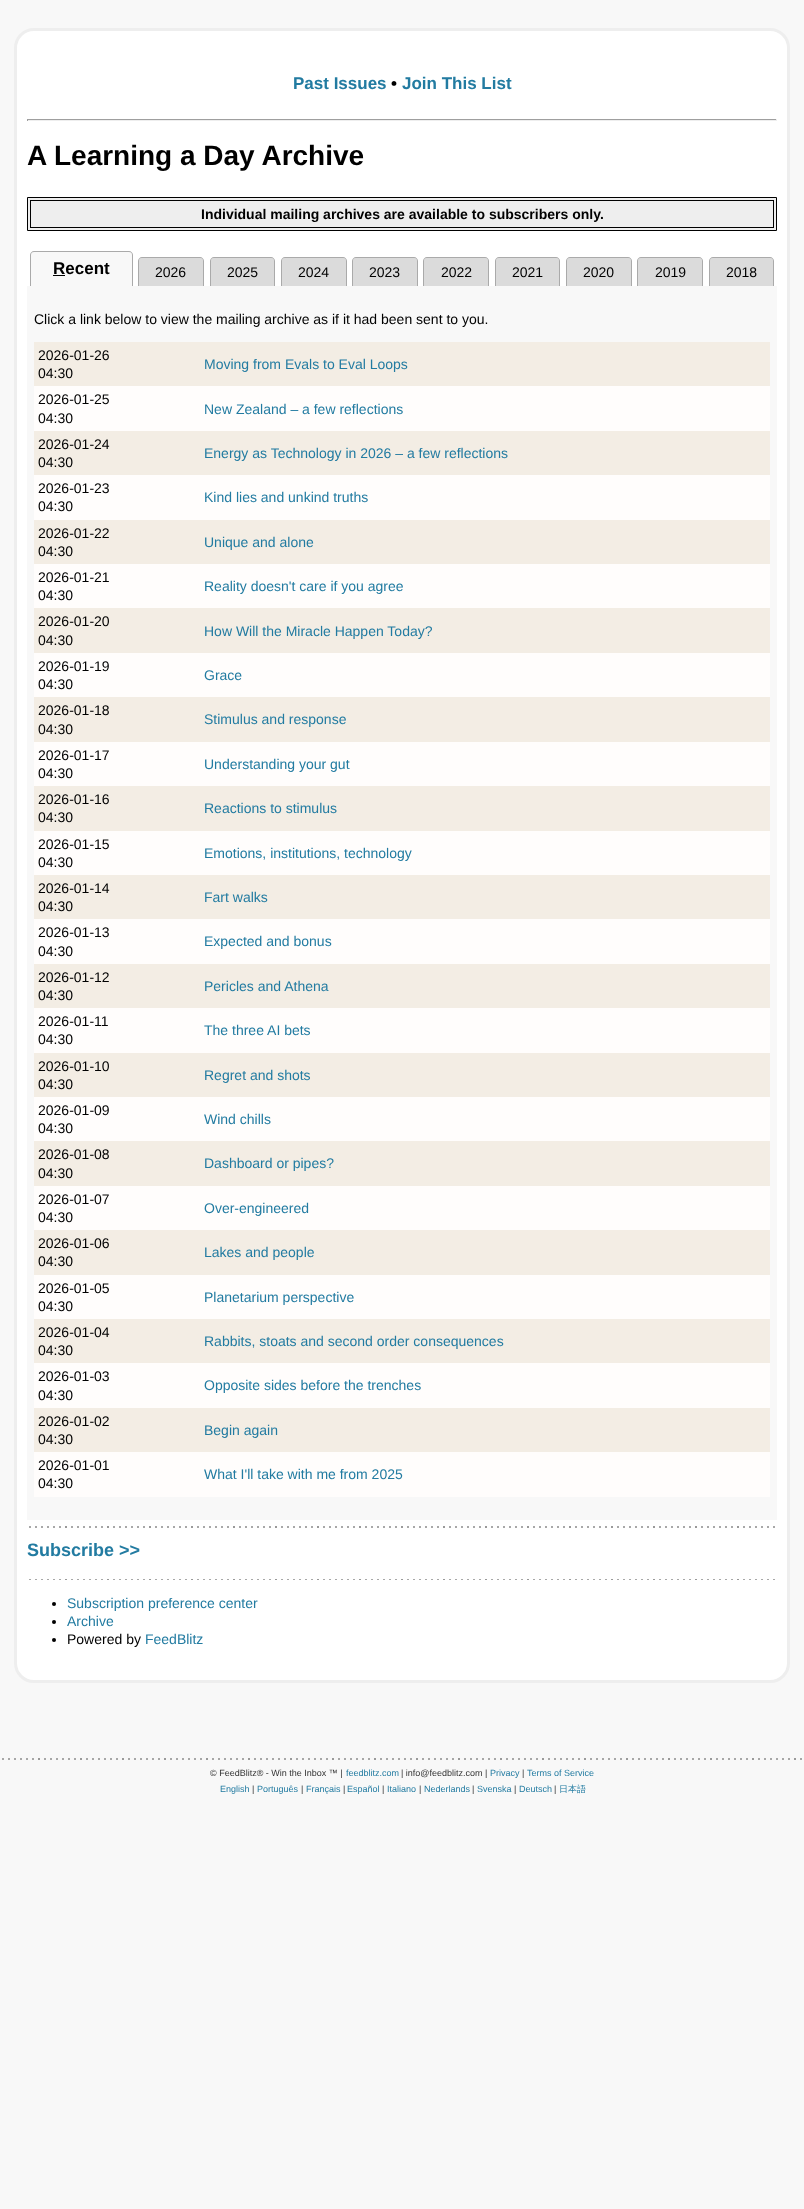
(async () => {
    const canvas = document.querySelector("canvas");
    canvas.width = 804;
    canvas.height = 2209;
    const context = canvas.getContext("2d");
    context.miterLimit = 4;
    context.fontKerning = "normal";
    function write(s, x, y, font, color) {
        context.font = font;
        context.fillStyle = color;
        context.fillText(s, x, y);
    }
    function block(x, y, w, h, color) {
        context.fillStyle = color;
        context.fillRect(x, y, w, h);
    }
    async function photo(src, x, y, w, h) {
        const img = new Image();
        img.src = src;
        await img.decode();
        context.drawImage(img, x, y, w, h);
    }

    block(0, 0, 804, 2209, "rgb(248, 248, 248)");
    context.fillStyle = "rgb(255, 255, 255)";
    context.beginPath();
    context.roundRect(15.5, 29.5, 773, 1652, 18.5);
    context.fill();
    context.strokeStyle = "rgb(238, 238, 238)";
    context.lineWidth = 3;
    context.stroke();
    write("Past Issues", 293, 89, "bold 17px Liberation Sans", "rgb(34, 123, 161)");
    write("•", 391, 89, "bold 17px Liberation Sans", "rgb(0, 0, 0)");
    write("Join This List", 402, 89, "bold 17px Liberation Sans", "rgb(34, 123, 161)");
    block(27, 119, 750, 1, "rgb(159, 159, 159)");
    block(776, 119, 1, 2, "rgb(238, 238, 238)");
    block(27, 120, 750, 1, "rgb(238, 238, 238)");
    block(27, 119, 1, 2, "rgb(159, 159, 159)");
    write("A Learning a Day Archive", 27, 165, "bold 28px Liberation Sans", "rgb(0, 0, 0)");
    context.fillStyle = "rgb(238, 238, 238)";
    context.beginPath();
    context.rect(27.5, 197.5, 749, 33);
    context.fill();
    context.strokeStyle = "rgb(0, 0, 0)";
    context.lineWidth = 1;
    context.stroke();
    context.strokeRect(30.5, 200.5, 743, 27);
    write("Individual mailing archives are available to subscribers only.", 201, 219, "bold 14px Liberation Sans", "rgb(0, 0, 0)");
    context.fillStyle = "rgb(248, 248, 248)";
    context.beginPath();
    context.roundRect(31, 252, 101, 34, [3, 3, 0, 0]);
    context.fill();
    context.fillStyle = "rgb(170, 170, 170)";
    context.beginPath();
    context.moveTo(34, 251);
    context.lineTo(129, 251);
    context.bezierCurveTo(131, 251, 133, 253, 133, 255);
    context.lineTo(133, 286);
    context.lineTo(30, 286);
    context.lineTo(30, 255);
    context.bezierCurveTo(30, 253, 32, 251, 34, 251);
    context.closePath();
    context.moveTo(34, 252);
    context.lineTo(129, 252);
    context.bezierCurveTo(131, 252, 132, 253, 132, 255);
    context.lineTo(132, 286);
    context.lineTo(31, 286);
    context.lineTo(31, 255);
    context.bezierCurveTo(31, 253, 32, 252, 34, 252);
    context.closePath();
    context.fill("evenodd");
    write("Recent", 53, 274, "bold 17px Liberation Sans", "rgb(0, 0, 0)");
    block(53, 275, 12, 1, "rgb(0, 0, 0)");
    context.fillStyle = "rgb(219, 219, 219)";
    context.beginPath();
    context.roundRect(139, 258, 64, 28, [3, 3, 0, 0]);
    context.fill();
    context.fillStyle = "rgb(170, 170, 170)";
    context.beginPath();
    context.moveTo(142, 257);
    context.lineTo(200, 257);
    context.bezierCurveTo(202, 257, 204, 259, 204, 261);
    context.lineTo(204, 286);
    context.lineTo(138, 286);
    context.lineTo(138, 261);
    context.bezierCurveTo(138, 259, 140, 257, 142, 257);
    context.closePath();
    context.moveTo(142, 258);
    context.lineTo(200, 258);
    context.bezierCurveTo(202, 258, 203, 259, 203, 261);
    context.lineTo(203, 286);
    context.lineTo(139, 286);
    context.lineTo(139, 261);
    context.bezierCurveTo(139, 259, 140, 258, 142, 258);
    context.closePath();
    context.fill("evenodd");
    write("2026", 155, 277, "14px Liberation Sans", "rgb(0, 0, 0)");
    context.fillStyle = "rgb(219, 219, 219)";
    context.beginPath();
    context.roundRect(211, 258, 63, 28, [3, 3, 0, 0]);
    context.fill();
    context.fillStyle = "rgb(170, 170, 170)";
    context.beginPath();
    context.moveTo(214, 257);
    context.lineTo(271, 257);
    context.bezierCurveTo(273, 257, 275, 259, 275, 261);
    context.lineTo(275, 286);
    context.lineTo(210, 286);
    context.lineTo(210, 261);
    context.bezierCurveTo(210, 259, 212, 257, 214, 257);
    context.closePath();
    context.moveTo(214, 258);
    context.lineTo(271, 258);
    context.bezierCurveTo(273, 258, 274, 259, 274, 261);
    context.lineTo(274, 286);
    context.lineTo(211, 286);
    context.lineTo(211, 261);
    context.bezierCurveTo(211, 259, 212, 258, 214, 258);
    context.closePath();
    context.fill("evenodd");
    write("2025", 227, 277, "14px Liberation Sans", "rgb(0, 0, 0)");
    context.fillStyle = "rgb(219, 219, 219)";
    context.beginPath();
    context.roundRect(282, 258, 64, 28, [3, 3, 0, 0]);
    context.fill();
    context.fillStyle = "rgb(170, 170, 170)";
    context.beginPath();
    context.moveTo(285, 257);
    context.lineTo(343, 257);
    context.bezierCurveTo(345, 257, 347, 259, 347, 261);
    context.lineTo(347, 286);
    context.lineTo(281, 286);
    context.lineTo(281, 261);
    context.bezierCurveTo(281, 259, 283, 257, 285, 257);
    context.closePath();
    context.moveTo(285, 258);
    context.lineTo(343, 258);
    context.bezierCurveTo(345, 258, 346, 259, 346, 261);
    context.lineTo(346, 286);
    context.lineTo(282, 286);
    context.lineTo(282, 261);
    context.bezierCurveTo(282, 259, 283, 258, 285, 258);
    context.closePath();
    context.fill("evenodd");
    write("2024", 298, 277, "14px Liberation Sans", "rgb(0, 0, 0)");
    context.fillStyle = "rgb(219, 219, 219)";
    context.beginPath();
    context.roundRect(353, 258, 64, 28, [3, 3, 0, 0]);
    context.fill();
    context.fillStyle = "rgb(170, 170, 170)";
    context.beginPath();
    context.moveTo(356, 257);
    context.lineTo(414, 257);
    context.bezierCurveTo(416, 257, 418, 259, 418, 261);
    context.lineTo(418, 286);
    context.lineTo(352, 286);
    context.lineTo(352, 261);
    context.bezierCurveTo(352, 259, 354, 257, 356, 257);
    context.closePath();
    context.moveTo(356, 258);
    context.lineTo(414, 258);
    context.bezierCurveTo(416, 258, 417, 259, 417, 261);
    context.lineTo(417, 286);
    context.lineTo(353, 286);
    context.lineTo(353, 261);
    context.bezierCurveTo(353, 259, 354, 258, 356, 258);
    context.closePath();
    context.fill("evenodd");
    write("2023", 369, 277, "14px Liberation Sans", "rgb(0, 0, 0)");
    context.fillStyle = "rgb(219, 219, 219)";
    context.beginPath();
    context.roundRect(424, 258, 64, 28, [3, 3, 0, 0]);
    context.fill();
    context.fillStyle = "rgb(170, 170, 170)";
    context.beginPath();
    context.moveTo(427, 257);
    context.lineTo(485, 257);
    context.bezierCurveTo(487, 257, 489, 259, 489, 261);
    context.lineTo(489, 286);
    context.lineTo(423, 286);
    context.lineTo(423, 261);
    context.bezierCurveTo(423, 259, 425, 257, 427, 257);
    context.closePath();
    context.moveTo(427, 258);
    context.lineTo(485, 258);
    context.bezierCurveTo(487, 258, 488, 259, 488, 261);
    context.lineTo(488, 286);
    context.lineTo(424, 286);
    context.lineTo(424, 261);
    context.bezierCurveTo(424, 259, 425, 258, 427, 258);
    context.closePath();
    context.fill("evenodd");
    write("2022", 441, 277, "14px Liberation Sans", "rgb(0, 0, 0)");
    context.fillStyle = "rgb(219, 219, 219)";
    context.beginPath();
    context.roundRect(496, 258, 63, 28, [3, 3, 0, 0]);
    context.fill();
    context.fillStyle = "rgb(170, 170, 170)";
    context.beginPath();
    context.moveTo(499, 257);
    context.lineTo(556, 257);
    context.bezierCurveTo(558, 257, 560, 259, 560, 261);
    context.lineTo(560, 286);
    context.lineTo(495, 286);
    context.lineTo(495, 261);
    context.bezierCurveTo(495, 259, 497, 257, 499, 257);
    context.closePath();
    context.moveTo(499, 258);
    context.lineTo(556, 258);
    context.bezierCurveTo(558, 258, 559, 259, 559, 261);
    context.lineTo(559, 286);
    context.lineTo(496, 286);
    context.lineTo(496, 261);
    context.bezierCurveTo(496, 259, 497, 258, 499, 258);
    context.closePath();
    context.fill("evenodd");
    write("2021", 512, 277, "14px Liberation Sans", "rgb(0, 0, 0)");
    context.fillStyle = "rgb(219, 219, 219)";
    context.beginPath();
    context.roundRect(567, 258, 64, 28, [3, 3, 0, 0]);
    context.fill();
    context.fillStyle = "rgb(170, 170, 170)";
    context.beginPath();
    context.moveTo(570, 257);
    context.lineTo(628, 257);
    context.bezierCurveTo(630, 257, 632, 259, 632, 261);
    context.lineTo(632, 286);
    context.lineTo(566, 286);
    context.lineTo(566, 261);
    context.bezierCurveTo(566, 259, 568, 257, 570, 257);
    context.closePath();
    context.moveTo(570, 258);
    context.lineTo(628, 258);
    context.bezierCurveTo(630, 258, 631, 259, 631, 261);
    context.lineTo(631, 286);
    context.lineTo(567, 286);
    context.lineTo(567, 261);
    context.bezierCurveTo(567, 259, 568, 258, 570, 258);
    context.closePath();
    context.fill("evenodd");
    write("2020", 583, 277, "14px Liberation Sans", "rgb(0, 0, 0)");
    context.fillStyle = "rgb(219, 219, 219)";
    context.beginPath();
    context.roundRect(638, 258, 64, 28, [3, 3, 0, 0]);
    context.fill();
    context.fillStyle = "rgb(170, 170, 170)";
    context.beginPath();
    context.moveTo(641, 257);
    context.lineTo(699, 257);
    context.bezierCurveTo(701, 257, 703, 259, 703, 261);
    context.lineTo(703, 286);
    context.lineTo(637, 286);
    context.lineTo(637, 261);
    context.bezierCurveTo(637, 259, 639, 257, 641, 257);
    context.closePath();
    context.moveTo(641, 258);
    context.lineTo(699, 258);
    context.bezierCurveTo(701, 258, 702, 259, 702, 261);
    context.lineTo(702, 286);
    context.lineTo(638, 286);
    context.lineTo(638, 261);
    context.bezierCurveTo(638, 259, 639, 258, 641, 258);
    context.closePath();
    context.fill("evenodd");
    write("2019", 655, 277, "14px Liberation Sans", "rgb(0, 0, 0)");
    context.fillStyle = "rgb(219, 219, 219)";
    context.beginPath();
    context.roundRect(710, 258, 63, 28, [3, 3, 0, 0]);
    context.fill();
    context.fillStyle = "rgb(170, 170, 170)";
    context.beginPath();
    context.moveTo(713, 257);
    context.lineTo(770, 257);
    context.bezierCurveTo(772, 257, 774, 259, 774, 261);
    context.lineTo(774, 286);
    context.lineTo(709, 286);
    context.lineTo(709, 261);
    context.bezierCurveTo(709, 259, 711, 257, 713, 257);
    context.closePath();
    context.moveTo(713, 258);
    context.lineTo(770, 258);
    context.bezierCurveTo(772, 258, 773, 259, 773, 261);
    context.lineTo(773, 286);
    context.lineTo(710, 286);
    context.lineTo(710, 261);
    context.bezierCurveTo(710, 259, 711, 258, 713, 258);
    context.closePath();
    context.fill("evenodd");
    write("2018", 726, 277, "14px Liberation Sans", "rgb(0, 0, 0)");
    block(27, 286, 750, 1234, "rgb(248, 248, 248)");
    write("Click a link below to view the mailing archive as if it had been sent to you.", 34, 324, "14px Liberation Sans", "rgb(0, 0, 0)");
    block(34, 342, 736, 44, "rgb(243, 237, 228)");
    write("2026-01-26", 38, 360, "14px Liberation Sans", "rgb(0, 0, 0)");
    write("04:30", 38, 378, "14px Liberation Sans", "rgb(0, 0, 0)");
    write("Moving from Evals to Eval Loops", 204, 369, "14px Liberation Sans", "rgb(34, 123, 161)");
    block(34, 386, 736, 45, "rgb(255, 253, 252)");
    write("2026-01-25", 38, 404, "14px Liberation Sans", "rgb(0, 0, 0)");
    write("04:30", 38, 423, "14px Liberation Sans", "rgb(0, 0, 0)");
    write("New Zealand – a few reflections", 204, 414, "14px Liberation Sans", "rgb(34, 123, 161)");
    block(34, 431, 736, 44, "rgb(243, 237, 228)");
    write("2026-01-24", 38, 449, "14px Liberation Sans", "rgb(0, 0, 0)");
    write("04:30", 38, 467, "14px Liberation Sans", "rgb(0, 0, 0)");
    write("Energy as Technology in 2026 – a few reflections", 204, 458, "14px Liberation Sans", "rgb(34, 123, 161)");
    block(34, 475, 736, 45, "rgb(255, 253, 252)");
    write("2026-01-23", 38, 493, "14px Liberation Sans", "rgb(0, 0, 0)");
    write("04:30", 38, 511, "14px Liberation Sans", "rgb(0, 0, 0)");
    write("Kind lies and unkind truths", 204, 502, "14px Liberation Sans", "rgb(34, 123, 161)");
    block(34, 520, 736, 44, "rgb(243, 237, 228)");
    write("2026-01-22", 38, 538, "14px Liberation Sans", "rgb(0, 0, 0)");
    write("04:30", 38, 556, "14px Liberation Sans", "rgb(0, 0, 0)");
    write("Unique and alone", 204, 547, "14px Liberation Sans", "rgb(34, 123, 161)");
    block(34, 564, 736, 44, "rgb(255, 253, 252)");
    write("2026-01-21", 38, 582, "14px Liberation Sans", "rgb(0, 0, 0)");
    write("04:30", 38, 600, "14px Liberation Sans", "rgb(0, 0, 0)");
    write("Reality doesn't care if you agree", 204, 591, "14px Liberation Sans", "rgb(34, 123, 161)");
    block(34, 608, 736, 45, "rgb(243, 237, 228)");
    write("2026-01-20", 38, 626, "14px Liberation Sans", "rgb(0, 0, 0)");
    write("04:30", 38, 645, "14px Liberation Sans", "rgb(0, 0, 0)");
    write("How Will the Miracle Happen Today?", 204, 636, "14px Liberation Sans", "rgb(34, 123, 161)");
    block(34, 653, 736, 44, "rgb(255, 253, 252)");
    write("2026-01-19", 38, 671, "14px Liberation Sans", "rgb(0, 0, 0)");
    write("04:30", 38, 689, "14px Liberation Sans", "rgb(0, 0, 0)");
    write("Grace", 204, 680, "14px Liberation Sans", "rgb(34, 123, 161)");
    block(34, 697, 736, 45, "rgb(243, 237, 228)");
    write("2026-01-18", 38, 715, "14px Liberation Sans", "rgb(0, 0, 0)");
    write("04:30", 38, 734, "14px Liberation Sans", "rgb(0, 0, 0)");
    write("Stimulus and response", 204, 724, "14px Liberation Sans", "rgb(34, 123, 161)");
    block(34, 742, 736, 44, "rgb(255, 253, 252)");
    write("2026-01-17", 38, 760, "14px Liberation Sans", "rgb(0, 0, 0)");
    write("04:30", 38, 778, "14px Liberation Sans", "rgb(0, 0, 0)");
    write("Understanding your gut", 204, 769, "14px Liberation Sans", "rgb(34, 123, 161)");
    block(34, 786, 736, 45, "rgb(243, 237, 228)");
    write("2026-01-16", 38, 804, "14px Liberation Sans", "rgb(0, 0, 0)");
    write("04:30", 38, 822, "14px Liberation Sans", "rgb(0, 0, 0)");
    write("Reactions to stimulus", 204, 813, "14px Liberation Sans", "rgb(34, 123, 161)");
    block(34, 831, 736, 44, "rgb(255, 253, 252)");
    write("2026-01-15", 38, 849, "14px Liberation Sans", "rgb(0, 0, 0)");
    write("04:30", 38, 867, "14px Liberation Sans", "rgb(0, 0, 0)");
    write("Emotions, institutions, technology", 204, 858, "14px Liberation Sans", "rgb(34, 123, 161)");
    block(34, 875, 736, 44, "rgb(243, 237, 228)");
    write("2026-01-14", 38, 893, "14px Liberation Sans", "rgb(0, 0, 0)");
    write("04:30", 38, 911, "14px Liberation Sans", "rgb(0, 0, 0)");
    write("Fart walks", 204, 902, "14px Liberation Sans", "rgb(34, 123, 161)");
    block(34, 919, 736, 45, "rgb(255, 253, 252)");
    write("2026-01-13", 38, 937, "14px Liberation Sans", "rgb(0, 0, 0)");
    write("04:30", 38, 956, "14px Liberation Sans", "rgb(0, 0, 0)");
    write("Expected and bonus", 204, 946, "14px Liberation Sans", "rgb(34, 123, 161)");
    block(34, 964, 736, 44, "rgb(243, 237, 228)");
    write("2026-01-12", 38, 982, "14px Liberation Sans", "rgb(0, 0, 0)");
    write("04:30", 38, 1000, "14px Liberation Sans", "rgb(0, 0, 0)");
    write("Pericles and Athena", 204, 991, "14px Liberation Sans", "rgb(34, 123, 161)");
    block(34, 1008, 736, 45, "rgb(255, 253, 252)");
    write("2026-01-11", 38, 1026, "14px Liberation Sans", "rgb(0, 0, 0)");
    write("04:30", 38, 1044, "14px Liberation Sans", "rgb(0, 0, 0)");
    write("The three AI bets", 204, 1035, "14px Liberation Sans", "rgb(34, 123, 161)");
    block(34, 1053, 736, 44, "rgb(243, 237, 228)");
    write("2026-01-10", 38, 1071, "14px Liberation Sans", "rgb(0, 0, 0)");
    write("04:30", 38, 1089, "14px Liberation Sans", "rgb(0, 0, 0)");
    write("Regret and shots", 204, 1080, "14px Liberation Sans", "rgb(34, 123, 161)");
    block(34, 1097, 736, 44, "rgb(255, 253, 252)");
    write("2026-01-09", 38, 1115, "14px Liberation Sans", "rgb(0, 0, 0)");
    write("04:30", 38, 1133, "14px Liberation Sans", "rgb(0, 0, 0)");
    write("Wind chills", 204, 1124, "14px Liberation Sans", "rgb(34, 123, 161)");
    block(34, 1141, 736, 45, "rgb(243, 237, 228)");
    write("2026-01-08", 38, 1159, "14px Liberation Sans", "rgb(0, 0, 0)");
    write("04:30", 38, 1178, "14px Liberation Sans", "rgb(0, 0, 0)");
    write("Dashboard or pipes?", 204, 1168, "14px Liberation Sans", "rgb(34, 123, 161)");
    block(34, 1186, 736, 44, "rgb(255, 253, 252)");
    write("2026-01-07", 38, 1204, "14px Liberation Sans", "rgb(0, 0, 0)");
    write("04:30", 38, 1222, "14px Liberation Sans", "rgb(0, 0, 0)");
    write("Over-engineered", 204, 1213, "14px Liberation Sans", "rgb(34, 123, 161)");
    block(34, 1230, 736, 45, "rgb(243, 237, 228)");
    write("2026-01-06", 38, 1248, "14px Liberation Sans", "rgb(0, 0, 0)");
    write("04:30", 38, 1266, "14px Liberation Sans", "rgb(0, 0, 0)");
    write("Lakes and people", 204, 1257, "14px Liberation Sans", "rgb(34, 123, 161)");
    block(34, 1275, 736, 44, "rgb(255, 253, 252)");
    write("2026-01-05", 38, 1293, "14px Liberation Sans", "rgb(0, 0, 0)");
    write("04:30", 38, 1311, "14px Liberation Sans", "rgb(0, 0, 0)");
    write("Planetarium perspective", 204, 1302, "14px Liberation Sans", "rgb(34, 123, 161)");
    block(34, 1319, 736, 44, "rgb(243, 237, 228)");
    write("2026-01-04", 38, 1337, "14px Liberation Sans", "rgb(0, 0, 0)");
    write("04:30", 38, 1355, "14px Liberation Sans", "rgb(0, 0, 0)");
    write("Rabbits, stoats and second order consequences", 204, 1346, "14px Liberation Sans", "rgb(34, 123, 161)");
    block(34, 1363, 736, 45, "rgb(255, 253, 252)");
    write("2026-01-03", 38, 1381, "14px Liberation Sans", "rgb(0, 0, 0)");
    write("04:30", 38, 1400, "14px Liberation Sans", "rgb(0, 0, 0)");
    write("Opposite sides before the trenches", 204, 1390, "14px Liberation Sans", "rgb(34, 123, 161)");
    block(34, 1408, 736, 44, "rgb(243, 237, 228)");
    write("2026-01-02", 38, 1426, "14px Liberation Sans", "rgb(0, 0, 0)");
    write("04:30", 38, 1444, "14px Liberation Sans", "rgb(0, 0, 0)");
    write("Begin again", 204, 1435, "14px Liberation Sans", "rgb(34, 123, 161)");
    block(34, 1452, 736, 45, "rgb(255, 253, 252)");
    write("2026-01-01", 38, 1470, "14px Liberation Sans", "rgb(0, 0, 0)");
    write("04:30", 38, 1488, "14px Liberation Sans", "rgb(0, 0, 0)");
    write("What I'll take with me from 2025", 204, 1479, "14px Liberation Sans", "rgb(34, 123, 161)");
    await photo("media/1.png", 29, 1526, 746, 2);
    write("Subscribe >>", 27, 1556, "bold 18px Liberation Sans", "rgb(34, 123, 161)");
    await photo("media/2.png", 29, 1579, 746, 1);
    context.fillStyle = "rgb(0, 0, 0)";
    context.beginPath();
    context.arc(54, 1604, 2, 0, Math.PI * 2);
    context.fill();
    write("Subscription preference center", 67, 1608, "14px Liberation Sans", "rgb(34, 123, 161)");
    context.fillStyle = "rgb(0, 0, 0)";
    context.beginPath();
    context.arc(54, 1622, 2, 0, Math.PI * 2);
    context.fill();
    write("Archive", 67, 1626, "14px Liberation Sans", "rgb(34, 123, 161)");
    context.fillStyle = "rgb(0, 0, 0)";
    context.beginPath();
    context.arc(54, 1640, 2, 0, Math.PI * 2);
    context.fill();
    write("Powered by", 67, 1644, "14px Liberation Sans", "rgb(0, 0, 0)");
    write("FeedBlitz", 145, 1644, "14px Liberation Sans", "rgb(34, 123, 161)");
    await photo("media/3.png", 2, 1758, 800, 2);
    write("© FeedBlitz® - Win the Inbox ™ |", 210, 1776, "9px Liberation Sans", "rgb(51, 51, 51)");
    write("feedblitz.com", 346, 1776, "9px Liberation Sans", "rgb(34, 123, 161)");
    write("| info@feedblitz.com |", 401, 1776, "9px Liberation Sans", "rgb(51, 51, 51)");
    write("Privacy", 490, 1776, "9px Liberation Sans", "rgb(34, 123, 161)");
    write("|", 522, 1776, "9px Liberation Sans", "rgb(51, 51, 51)");
    write("Terms of Service", 527, 1776, "9px Liberation Sans", "rgb(34, 123, 161)");
    write("English", 220, 1792, "9px Liberation Sans", "rgb(34, 123, 161)");
    write("|", 252, 1792, "9px Liberation Sans", "rgb(51, 51, 51)");
    write("Português", 257, 1792, "9px Liberation Sans", "rgb(34, 123, 161)");
    write("|", 301, 1792, "9px Liberation Sans", "rgb(51, 51, 51)");
    write("Français", 306, 1792, "9px Liberation Sans", "rgb(34, 123, 161)");
    write("|", 343, 1792, "9px Liberation Sans", "rgb(51, 51, 51)");
    write("Español", 347, 1792, "9px Liberation Sans", "rgb(34, 123, 161)");
    write("|", 382, 1792, "9px Liberation Sans", "rgb(51, 51, 51)");
    write("Italiano", 387, 1792, "9px Liberation Sans", "rgb(34, 123, 161)");
    write("|", 419, 1792, "9px Liberation Sans", "rgb(51, 51, 51)");
    write("Nederlands", 424, 1792, "9px Liberation Sans", "rgb(34, 123, 161)");
    write("|", 472, 1792, "9px Liberation Sans", "rgb(51, 51, 51)");
    write("Svenska", 477, 1792, "9px Liberation Sans", "rgb(34, 123, 161)");
    write("|", 514, 1792, "9px Liberation Sans", "rgb(51, 51, 51)");
    write("Deutsch", 519, 1792, "9px Liberation Sans", "rgb(34, 123, 161)");
    write("|", 554, 1792, "9px Liberation Sans", "rgb(51, 51, 51)");
    write("日本語", 559, 1792, "500 9px WenQuanYi Zen Hei", "rgb(34, 123, 161)");
})();
